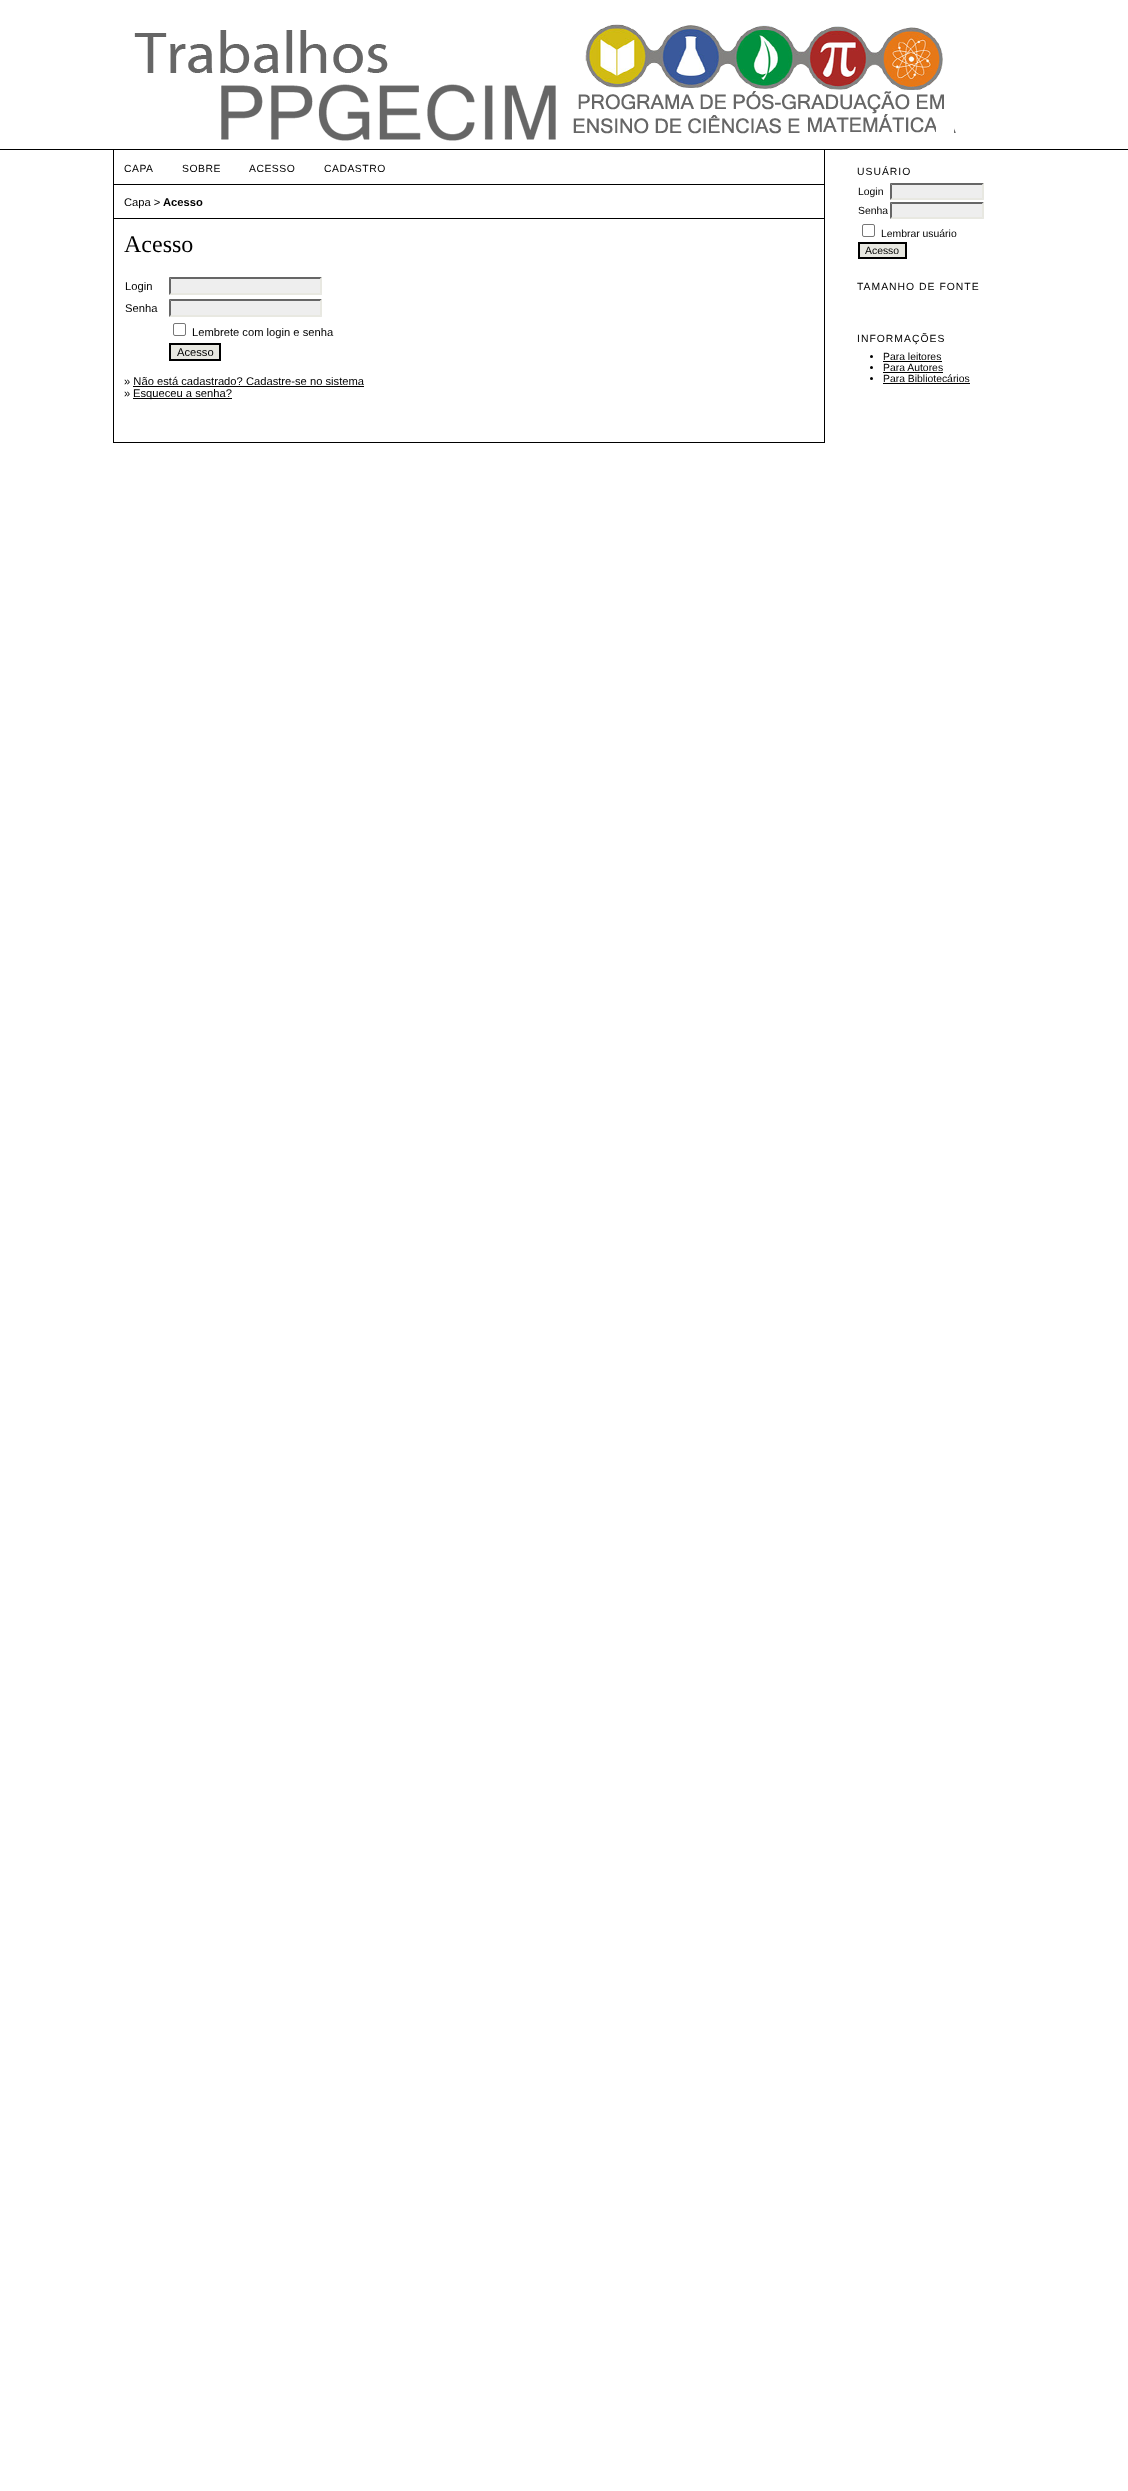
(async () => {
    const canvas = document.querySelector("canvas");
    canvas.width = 1128;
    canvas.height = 2491;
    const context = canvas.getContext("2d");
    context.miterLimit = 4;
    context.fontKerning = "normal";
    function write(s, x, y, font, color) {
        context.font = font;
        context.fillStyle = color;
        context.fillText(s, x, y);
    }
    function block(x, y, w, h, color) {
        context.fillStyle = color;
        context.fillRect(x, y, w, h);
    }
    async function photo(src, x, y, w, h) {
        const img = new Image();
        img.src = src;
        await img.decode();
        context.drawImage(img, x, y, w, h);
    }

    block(0, 0, 1128, 2491, "rgb(255, 255, 255)");
    block(0, 149, 1128, 1, "rgb(0, 0, 0)");
    await photo("media/1.png", 134, 24, 822, 117);
    block(824, 150, 1, 293, "rgb(0, 0, 0)");
    block(113, 442, 712, 1, "rgb(0, 0, 0)");
    block(113, 150, 1, 293, "rgb(0, 0, 0)");
    block(114, 184, 710, 1, "rgb(0, 0, 0)");
    context.letterSpacing = "0.5px";
    write("CAPA", 124, 172, "10.4px Liberation Sans", "rgb(0, 0, 0)");
    write("SOBRE", 182, 172, "10.4px Liberation Sans", "rgb(0, 0, 0)");
    write("ACESSO", 249, 172, "10.4px Liberation Sans", "rgb(0, 0, 0)");
    write("CADASTRO", 324, 172, "10.4px Liberation Sans", "rgb(0, 0, 0)");
    block(114, 218, 710, 1, "rgb(0, 0, 0)");
    context.letterSpacing = "0px";
    write("Capa >", 124, 206, "11.2px Liberation Sans", "rgb(0, 0, 0)");
    write("Acesso", 163, 206, "bold 11.2px Liberation Sans", "rgb(0, 0, 0)");
    write("Acesso", 124, 252, "24px Liberation Serif", "rgb(0, 0, 0)");
    write("Login", 125, 290, "11.2px Liberation Sans", "rgb(0, 0, 0)");
    block(169, 277, 153, 18, "rgb(238, 238, 238)");
    context.fillStyle = "rgb(102, 102, 102)";
    context.beginPath();
    context.moveTo(169, 277);
    context.lineTo(322, 277);
    context.lineTo(320, 279);
    context.lineTo(171, 279);
    context.closePath();
    context.fill();
    context.fillStyle = "rgb(232, 232, 225)";
    context.beginPath();
    context.moveTo(322, 277);
    context.lineTo(322, 295);
    context.lineTo(320, 293);
    context.lineTo(320, 279);
    context.closePath();
    context.fill();
    context.beginPath();
    context.moveTo(322, 295);
    context.lineTo(169, 295);
    context.lineTo(171, 293);
    context.lineTo(320, 293);
    context.closePath();
    context.fill();
    context.fillStyle = "rgb(102, 102, 102)";
    context.beginPath();
    context.moveTo(169, 295);
    context.lineTo(169, 277);
    context.lineTo(171, 279);
    context.lineTo(171, 293);
    context.closePath();
    context.fill();
    write("Senha", 125, 312, "11.2px Liberation Sans", "rgb(0, 0, 0)");
    block(169, 299, 153, 18, "rgb(238, 238, 238)");
    context.fillStyle = "rgb(102, 102, 102)";
    context.beginPath();
    context.moveTo(169, 299);
    context.lineTo(322, 299);
    context.lineTo(320, 301);
    context.lineTo(171, 301);
    context.closePath();
    context.fill();
    context.fillStyle = "rgb(232, 232, 225)";
    context.beginPath();
    context.moveTo(322, 299);
    context.lineTo(322, 317);
    context.lineTo(320, 315);
    context.lineTo(320, 301);
    context.closePath();
    context.fill();
    context.beginPath();
    context.moveTo(322, 317);
    context.lineTo(169, 317);
    context.lineTo(171, 315);
    context.lineTo(320, 315);
    context.closePath();
    context.fill();
    context.fillStyle = "rgb(102, 102, 102)";
    context.beginPath();
    context.moveTo(169, 317);
    context.lineTo(169, 299);
    context.lineTo(171, 301);
    context.lineTo(171, 315);
    context.closePath();
    context.fill();
    context.beginPath();
    context.roundRect(173.5, 323.5, 12, 12, 1.5);
    context.strokeStyle = "rgb(118, 118, 118)";
    context.stroke();
    write("Lembrete com login e senha", 192, 336, "11.2px Liberation Sans", "rgb(0, 0, 0)");
    context.fillStyle = "rgb(232, 232, 225)";
    context.beginPath();
    context.rect(170, 344, 50, 16);
    context.fill();
    context.strokeStyle = "rgb(0, 0, 0)";
    context.lineWidth = 2;
    context.stroke();
    write("Acesso", 177, 356, "11.2px Liberation Sans", "rgb(0, 0, 0)");
    write("» Não está cadastrado? Cadastre-se no sistema", 124, 385, "11.2px Liberation Sans", "rgb(0, 0, 0)");
    block(133, 386, 231, 1, "rgb(0, 0, 0)");
    write("»", 124, 397, "11.2px Liberation Sans", "rgb(0, 0, 0)");
    block(133, 398, 99, 1, "rgb(0, 0, 0)");
    write("Esqueceu a senha?", 133, 397, "11.2px Liberation Sans", "rgb(0, 0, 0)");
    context.letterSpacing = "1px";
    write("USUÁRIO", 857, 175, "10.4px Liberation Sans", "rgb(0, 0, 0)");
    context.letterSpacing = "0px";
    write("Login", 858, 195, "10.4px Liberation Sans", "rgb(0, 0, 0)");
    block(890, 183, 94, 17, "rgb(238, 238, 238)");
    context.fillStyle = "rgb(102, 102, 102)";
    context.beginPath();
    context.moveTo(890, 183);
    context.lineTo(984, 183);
    context.lineTo(982, 185);
    context.lineTo(892, 185);
    context.closePath();
    context.fill();
    context.fillStyle = "rgb(232, 232, 225)";
    context.beginPath();
    context.moveTo(984, 183);
    context.lineTo(984, 200);
    context.lineTo(982, 198);
    context.lineTo(982, 185);
    context.closePath();
    context.fill();
    context.beginPath();
    context.moveTo(984, 200);
    context.lineTo(890, 200);
    context.lineTo(892, 198);
    context.lineTo(982, 198);
    context.closePath();
    context.fill();
    context.fillStyle = "rgb(102, 102, 102)";
    context.beginPath();
    context.moveTo(890, 200);
    context.lineTo(890, 183);
    context.lineTo(892, 185);
    context.lineTo(892, 198);
    context.closePath();
    context.fill();
    write("Senha", 858, 214, "10.4px Liberation Sans", "rgb(0, 0, 0)");
    block(890, 202, 94, 17, "rgb(238, 238, 238)");
    context.fillStyle = "rgb(102, 102, 102)";
    context.beginPath();
    context.moveTo(890, 202);
    context.lineTo(984, 202);
    context.lineTo(982, 204);
    context.lineTo(892, 204);
    context.closePath();
    context.fill();
    context.fillStyle = "rgb(232, 232, 225)";
    context.beginPath();
    context.moveTo(984, 202);
    context.lineTo(984, 219);
    context.lineTo(982, 217);
    context.lineTo(982, 204);
    context.closePath();
    context.fill();
    context.beginPath();
    context.moveTo(984, 219);
    context.lineTo(890, 219);
    context.lineTo(892, 217);
    context.lineTo(982, 217);
    context.closePath();
    context.fill();
    context.fillStyle = "rgb(102, 102, 102)";
    context.beginPath();
    context.moveTo(890, 219);
    context.lineTo(890, 202);
    context.lineTo(892, 204);
    context.lineTo(892, 217);
    context.closePath();
    context.fill();
    context.beginPath();
    context.roundRect(862.5, 224.5, 12, 12, 1.5);
    context.strokeStyle = "rgb(118, 118, 118)";
    context.lineWidth = 1;
    context.stroke();
    write("Lembrar usuário", 881, 237, "10.4px Liberation Sans", "rgb(0, 0, 0)");
    context.fillStyle = "rgb(232, 232, 225)";
    context.beginPath();
    context.rect(859, 243, 47, 15);
    context.fill();
    context.strokeStyle = "rgb(0, 0, 0)";
    context.lineWidth = 2;
    context.stroke();
    write("Acesso", 865, 254, "10.4px Liberation Sans", "rgb(0, 0, 0)");
    context.letterSpacing = "1px";
    write("TAMANHO DE FONTE", 857, 290, "10.4px Liberation Sans", "rgb(0, 0, 0)");
    write("INFORMAÇÕES", 857, 342, "10.4px Liberation Sans", "rgb(0, 0, 0)");
    context.beginPath();
    context.arc(871.5, 356.5, 1.5, 0, Math.PI * 2);
    context.fill();
    context.letterSpacing = "0px";
    write("Para leitores", 883, 360, "10.4px Liberation Sans", "rgb(0, 0, 0)");
    block(883, 361, 59, 1, "rgb(0, 0, 0)");
    context.beginPath();
    context.arc(871.5, 367.5, 1.5, 0, Math.PI * 2);
    context.fill();
    write("Para Autores", 883, 371, "10.4px Liberation Sans", "rgb(0, 0, 0)");
    block(883, 372, 60, 1, "rgb(0, 0, 0)");
    context.beginPath();
    context.arc(871.5, 378.5, 1.5, 0, Math.PI * 2);
    context.fill();
    write("Para Bibliotecários", 883, 382, "10.4px Liberation Sans", "rgb(0, 0, 0)");
    block(883, 383, 87, 1, "rgb(0, 0, 0)");
})();
